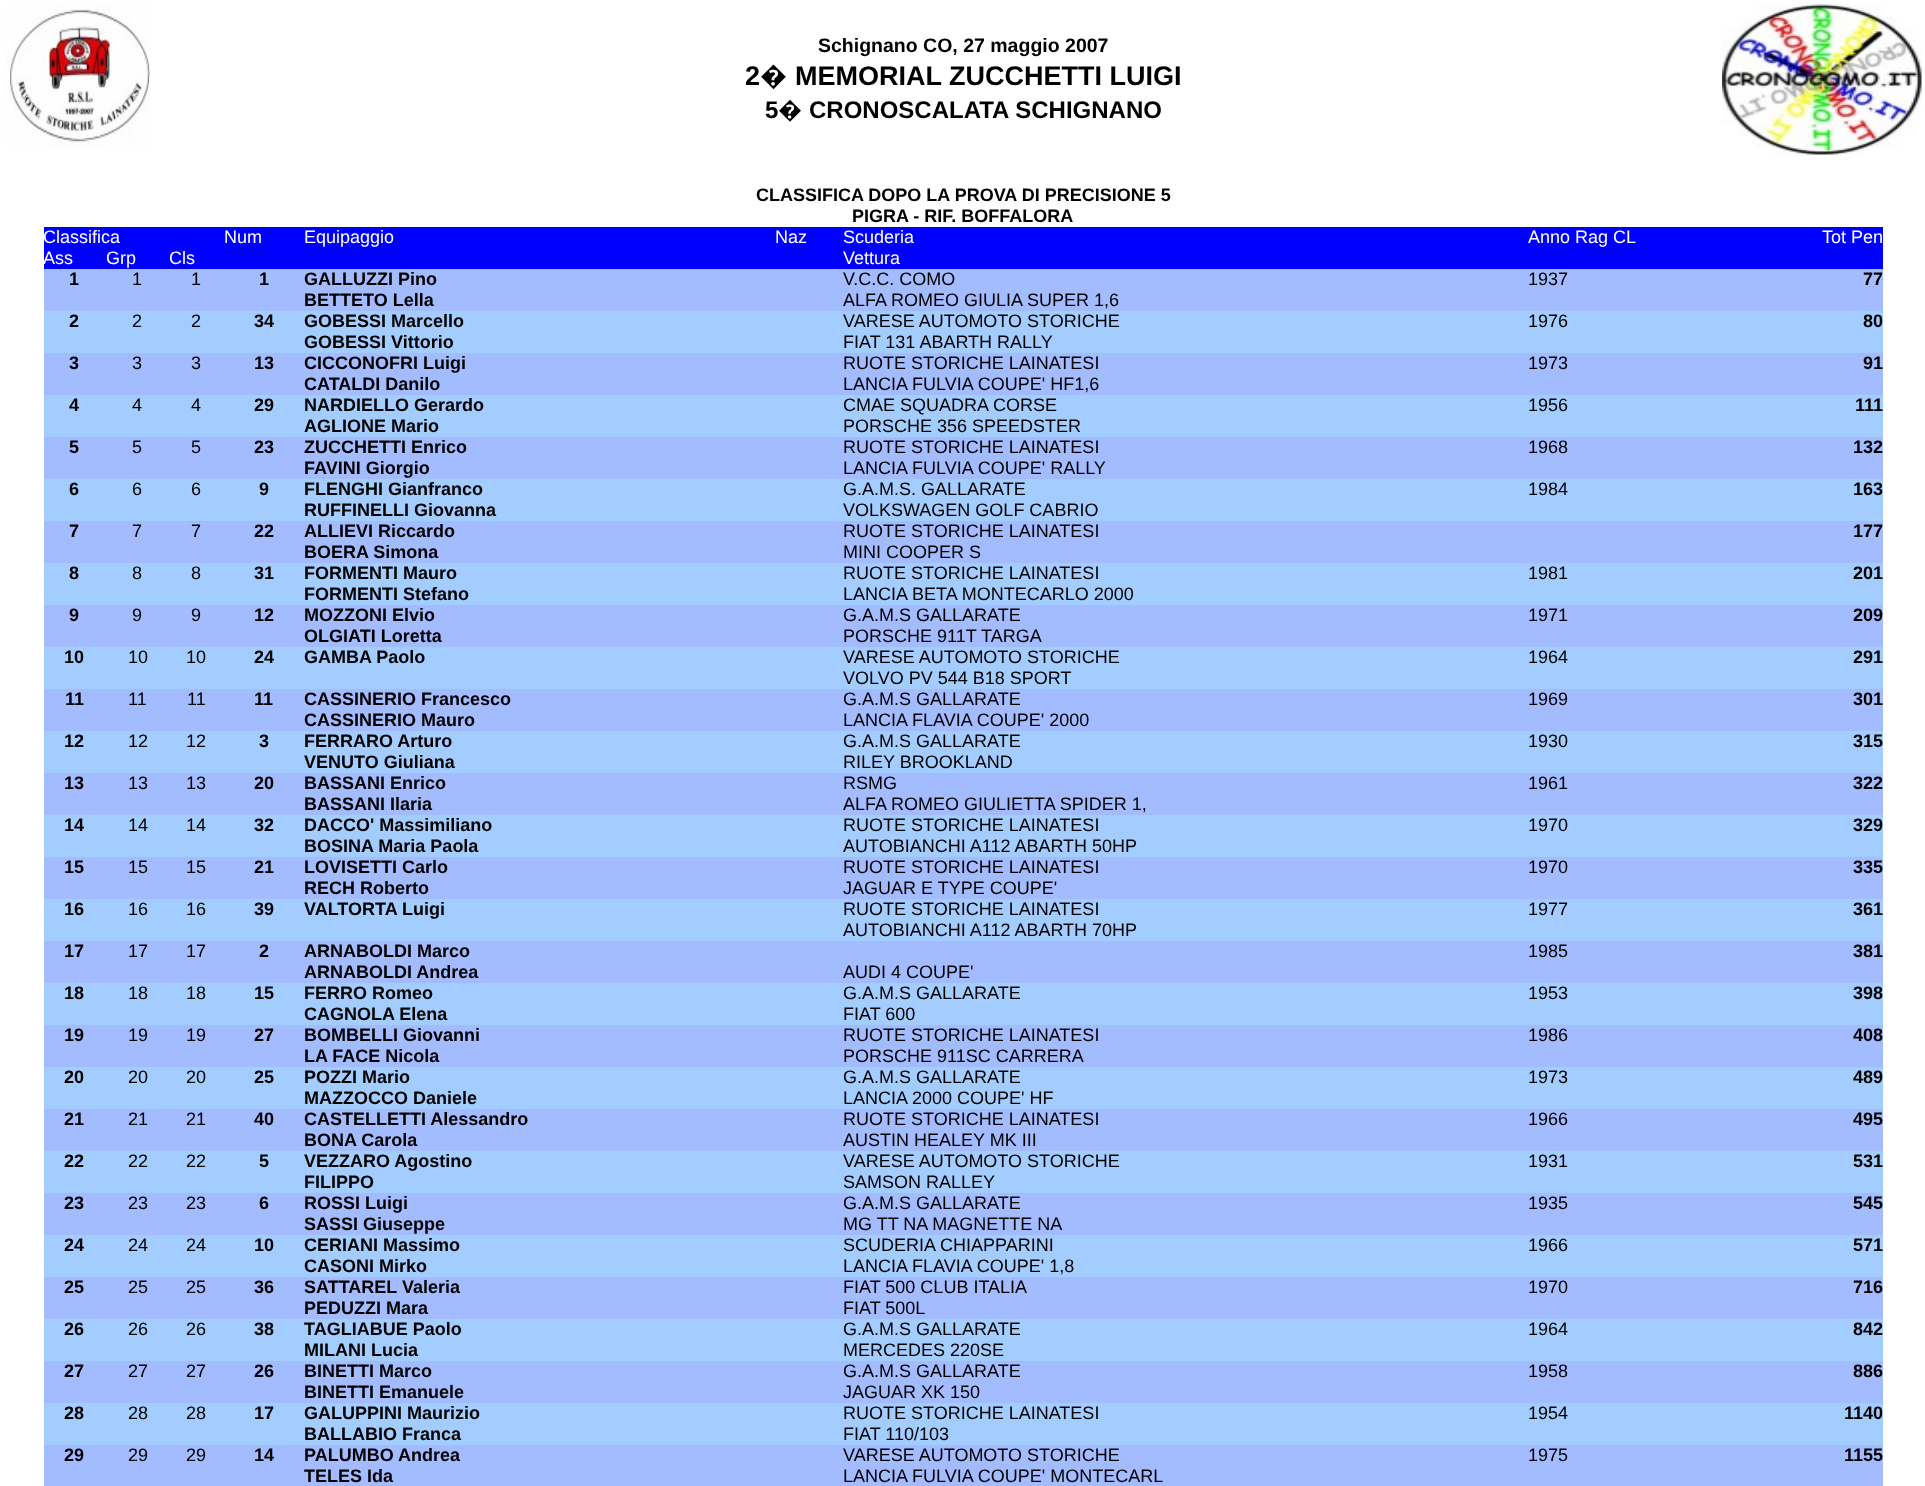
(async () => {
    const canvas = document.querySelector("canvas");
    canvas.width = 1925;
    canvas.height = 1486;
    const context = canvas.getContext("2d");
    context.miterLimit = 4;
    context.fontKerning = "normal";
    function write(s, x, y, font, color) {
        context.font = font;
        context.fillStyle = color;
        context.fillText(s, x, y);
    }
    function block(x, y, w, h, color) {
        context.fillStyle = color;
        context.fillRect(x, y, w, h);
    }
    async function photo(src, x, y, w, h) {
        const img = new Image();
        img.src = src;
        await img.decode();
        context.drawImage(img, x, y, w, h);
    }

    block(0, 0, 1925, 1486, "rgb(255, 255, 255)");
    await photo("media/1.png", 6, 6, 145, 141);
    write("Schignano CO, 27 maggio 2007", 818, 52, "bold 19.5px Liberation Sans", "rgb(0, 0, 0)");
    write("2", 745, 85, "bold 27px Liberation Sans", "rgb(0, 0, 0)");
    write("�", 760, 85, "bold 27px Noto Sans", "rgb(0, 0, 0)");
    write("MEMORIAL ZUCCHETTI LUIGI", 795, 85, "bold 27px Liberation Sans", "rgb(0, 0, 0)");
    write("5", 765, 118, "bold 24px Liberation Sans", "rgb(0, 0, 0)");
    write("�", 778, 118, "bold 24px Noto Sans", "rgb(0, 0, 0)");
    write("CRONOSCALATA SCHIGNANO", 809, 118, "bold 24px Liberation Sans", "rgb(0, 0, 0)");
    await photo("media/2.png", 1722, 4, 200, 151);
    write("CLASSIFICA DOPO LA PROVA DI PRECISIONE 5", 756, 201, "bold 18px Liberation Sans", "rgb(0, 0, 0)");
    write("PIGRA - RIF. BOFFALORA", 852, 222, "bold 18px Liberation Sans", "rgb(0, 0, 0)");
    block(44, 227, 1839, 42, "rgb(0, 0, 255)");
    write("Classifica", 43, 243, "18px Liberation Sans", "rgb(255, 255, 255)");
    write("Num", 224, 243, "18px Liberation Sans", "rgb(255, 255, 255)");
    write("Equipaggio", 304, 243, "18px Liberation Sans", "rgb(255, 255, 255)");
    write("Naz", 775, 243, "18px Liberation Sans", "rgb(255, 255, 255)");
    write("Scuderia", 843, 243, "18px Liberation Sans", "rgb(255, 255, 255)");
    write("Anno Rag CL", 1528, 243, "18px Liberation Sans", "rgb(255, 255, 255)");
    write("Tot Pen", 1822, 243, "18px Liberation Sans", "rgb(255, 255, 255)");
    write("Ass", 43, 264, "18px Liberation Sans", "rgb(255, 255, 255)");
    write("Grp", 106, 264, "18px Liberation Sans", "rgb(255, 255, 255)");
    write("Cls", 169, 264, "18px Liberation Sans", "rgb(255, 255, 255)");
    write("Vettura", 843, 264, "18px Liberation Sans", "rgb(255, 255, 255)");
    block(44, 269, 1839, 42, "rgb(163, 187, 255)");
    write("1", 69, 285, "bold 18px Liberation Sans", "rgb(0, 0, 0)");
    write("1", 132, 285, "18px Liberation Sans", "rgb(0, 0, 0)");
    write("1", 191, 285, "18px Liberation Sans", "rgb(0, 0, 0)");
    write("1", 259, 285, "bold 18px Liberation Sans", "rgb(0, 0, 0)");
    write("GALLUZZI Pino", 304, 285, "bold 18px Liberation Sans", "rgb(0, 0, 0)");
    write("BETTETO Lella", 304, 306, "bold 18px Liberation Sans", "rgb(0, 0, 0)");
    write("V.C.C. COMO", 843, 285, "18px Liberation Sans", "rgb(0, 0, 0)");
    write("ALFA ROMEO GIULIA SUPER 1,6", 843, 306, "18px Liberation Sans", "rgb(0, 0, 0)");
    write("1937", 1528, 285, "18px Liberation Sans", "rgb(0, 0, 0)");
    write("77", 1863, 285, "bold 18px Liberation Sans", "rgb(0, 0, 0)");
    block(44, 311, 1839, 42, "rgb(163, 204, 255)");
    write("2", 69, 327, "bold 18px Liberation Sans", "rgb(0, 0, 0)");
    write("2", 132, 327, "18px Liberation Sans", "rgb(0, 0, 0)");
    write("2", 191, 327, "18px Liberation Sans", "rgb(0, 0, 0)");
    write("34", 254, 327, "bold 18px Liberation Sans", "rgb(0, 0, 0)");
    write("GOBESSI Marcello", 304, 327, "bold 18px Liberation Sans", "rgb(0, 0, 0)");
    write("GOBESSI Vittorio", 304, 348, "bold 18px Liberation Sans", "rgb(0, 0, 0)");
    write("VARESE AUTOMOTO STORICHE", 843, 327, "18px Liberation Sans", "rgb(0, 0, 0)");
    write("FIAT 131 ABARTH RALLY", 843, 348, "18px Liberation Sans", "rgb(0, 0, 0)");
    write("1976", 1528, 327, "18px Liberation Sans", "rgb(0, 0, 0)");
    write("80", 1863, 327, "bold 18px Liberation Sans", "rgb(0, 0, 0)");
    block(44, 353, 1839, 42, "rgb(163, 187, 255)");
    write("3", 69, 369, "bold 18px Liberation Sans", "rgb(0, 0, 0)");
    write("3", 132, 369, "18px Liberation Sans", "rgb(0, 0, 0)");
    write("3", 191, 369, "18px Liberation Sans", "rgb(0, 0, 0)");
    write("13", 254, 369, "bold 18px Liberation Sans", "rgb(0, 0, 0)");
    write("CICCONOFRI Luigi", 304, 369, "bold 18px Liberation Sans", "rgb(0, 0, 0)");
    write("CATALDI Danilo", 304, 390, "bold 18px Liberation Sans", "rgb(0, 0, 0)");
    write("RUOTE STORICHE LAINATESI", 843, 369, "18px Liberation Sans", "rgb(0, 0, 0)");
    write("LANCIA FULVIA COUPE' HF1,6", 843, 390, "18px Liberation Sans", "rgb(0, 0, 0)");
    write("1973", 1528, 369, "18px Liberation Sans", "rgb(0, 0, 0)");
    write("91", 1863, 369, "bold 18px Liberation Sans", "rgb(0, 0, 0)");
    block(44, 395, 1839, 42, "rgb(163, 204, 255)");
    write("4", 69, 411, "bold 18px Liberation Sans", "rgb(0, 0, 0)");
    write("4", 132, 411, "18px Liberation Sans", "rgb(0, 0, 0)");
    write("4", 191, 411, "18px Liberation Sans", "rgb(0, 0, 0)");
    write("29", 254, 411, "bold 18px Liberation Sans", "rgb(0, 0, 0)");
    write("NARDIELLO Gerardo", 304, 411, "bold 18px Liberation Sans", "rgb(0, 0, 0)");
    write("AGLIONE Mario", 304, 432, "bold 18px Liberation Sans", "rgb(0, 0, 0)");
    write("CMAE SQUADRA CORSE", 843, 411, "18px Liberation Sans", "rgb(0, 0, 0)");
    write("PORSCHE 356 SPEEDSTER", 843, 432, "18px Liberation Sans", "rgb(0, 0, 0)");
    write("1956", 1528, 411, "18px Liberation Sans", "rgb(0, 0, 0)");
    write("111", 1855, 411, "bold 18px Liberation Sans", "rgb(0, 0, 0)");
    block(44, 437, 1839, 42, "rgb(163, 187, 255)");
    write("5", 69, 453, "bold 18px Liberation Sans", "rgb(0, 0, 0)");
    write("5", 132, 453, "18px Liberation Sans", "rgb(0, 0, 0)");
    write("5", 191, 453, "18px Liberation Sans", "rgb(0, 0, 0)");
    write("23", 254, 453, "bold 18px Liberation Sans", "rgb(0, 0, 0)");
    write("ZUCCHETTI Enrico", 304, 453, "bold 18px Liberation Sans", "rgb(0, 0, 0)");
    write("FAVINI Giorgio", 304, 474, "bold 18px Liberation Sans", "rgb(0, 0, 0)");
    write("RUOTE STORICHE LAINATESI", 843, 453, "18px Liberation Sans", "rgb(0, 0, 0)");
    write("LANCIA FULVIA COUPE' RALLY", 843, 474, "18px Liberation Sans", "rgb(0, 0, 0)");
    write("1968", 1528, 453, "18px Liberation Sans", "rgb(0, 0, 0)");
    write("132", 1853, 453, "bold 18px Liberation Sans", "rgb(0, 0, 0)");
    block(44, 479, 1839, 42, "rgb(163, 204, 255)");
    write("6", 69, 495, "bold 18px Liberation Sans", "rgb(0, 0, 0)");
    write("6", 132, 495, "18px Liberation Sans", "rgb(0, 0, 0)");
    write("6", 191, 495, "18px Liberation Sans", "rgb(0, 0, 0)");
    write("9", 259, 495, "bold 18px Liberation Sans", "rgb(0, 0, 0)");
    write("FLENGHI Gianfranco", 304, 495, "bold 18px Liberation Sans", "rgb(0, 0, 0)");
    write("RUFFINELLI Giovanna", 304, 516, "bold 18px Liberation Sans", "rgb(0, 0, 0)");
    write("G.A.M.S. GALLARATE", 843, 495, "18px Liberation Sans", "rgb(0, 0, 0)");
    write("VOLKSWAGEN GOLF CABRIO", 843, 516, "18px Liberation Sans", "rgb(0, 0, 0)");
    write("1984", 1528, 495, "18px Liberation Sans", "rgb(0, 0, 0)");
    write("163", 1853, 495, "bold 18px Liberation Sans", "rgb(0, 0, 0)");
    block(44, 521, 1839, 42, "rgb(163, 187, 255)");
    write("7", 69, 537, "bold 18px Liberation Sans", "rgb(0, 0, 0)");
    write("7", 132, 537, "18px Liberation Sans", "rgb(0, 0, 0)");
    write("7", 191, 537, "18px Liberation Sans", "rgb(0, 0, 0)");
    write("22", 254, 537, "bold 18px Liberation Sans", "rgb(0, 0, 0)");
    write("ALLIEVI Riccardo", 304, 537, "bold 18px Liberation Sans", "rgb(0, 0, 0)");
    write("BOERA Simona", 304, 558, "bold 18px Liberation Sans", "rgb(0, 0, 0)");
    write("RUOTE STORICHE LAINATESI", 843, 537, "18px Liberation Sans", "rgb(0, 0, 0)");
    write("MINI COOPER S", 843, 558, "18px Liberation Sans", "rgb(0, 0, 0)");
    write("177", 1853, 537, "bold 18px Liberation Sans", "rgb(0, 0, 0)");
    block(44, 563, 1839, 42, "rgb(163, 204, 255)");
    write("8", 69, 579, "bold 18px Liberation Sans", "rgb(0, 0, 0)");
    write("8", 132, 579, "18px Liberation Sans", "rgb(0, 0, 0)");
    write("8", 191, 579, "18px Liberation Sans", "rgb(0, 0, 0)");
    write("31", 254, 579, "bold 18px Liberation Sans", "rgb(0, 0, 0)");
    write("FORMENTI Mauro", 304, 579, "bold 18px Liberation Sans", "rgb(0, 0, 0)");
    write("FORMENTI Stefano", 304, 600, "bold 18px Liberation Sans", "rgb(0, 0, 0)");
    write("RUOTE STORICHE LAINATESI", 843, 579, "18px Liberation Sans", "rgb(0, 0, 0)");
    write("LANCIA BETA MONTECARLO 2000", 843, 600, "18px Liberation Sans", "rgb(0, 0, 0)");
    write("1981", 1528, 579, "18px Liberation Sans", "rgb(0, 0, 0)");
    write("201", 1853, 579, "bold 18px Liberation Sans", "rgb(0, 0, 0)");
    block(44, 605, 1839, 42, "rgb(163, 187, 255)");
    write("9", 69, 621, "bold 18px Liberation Sans", "rgb(0, 0, 0)");
    write("9", 132, 621, "18px Liberation Sans", "rgb(0, 0, 0)");
    write("9", 191, 621, "18px Liberation Sans", "rgb(0, 0, 0)");
    write("12", 254, 621, "bold 18px Liberation Sans", "rgb(0, 0, 0)");
    write("MOZZONI Elvio", 304, 621, "bold 18px Liberation Sans", "rgb(0, 0, 0)");
    write("OLGIATI Loretta", 304, 642, "bold 18px Liberation Sans", "rgb(0, 0, 0)");
    write("G.A.M.S GALLARATE", 843, 621, "18px Liberation Sans", "rgb(0, 0, 0)");
    write("PORSCHE 911T TARGA", 843, 642, "18px Liberation Sans", "rgb(0, 0, 0)");
    write("1971", 1528, 621, "18px Liberation Sans", "rgb(0, 0, 0)");
    write("209", 1853, 621, "bold 18px Liberation Sans", "rgb(0, 0, 0)");
    block(44, 647, 1839, 42, "rgb(163, 204, 255)");
    write("10", 64, 663, "bold 18px Liberation Sans", "rgb(0, 0, 0)");
    write("10", 128, 663, "18px Liberation Sans", "rgb(0, 0, 0)");
    write("10", 186, 663, "18px Liberation Sans", "rgb(0, 0, 0)");
    write("24", 254, 663, "bold 18px Liberation Sans", "rgb(0, 0, 0)");
    write("GAMBA Paolo", 304, 663, "bold 18px Liberation Sans", "rgb(0, 0, 0)");
    write("VARESE AUTOMOTO STORICHE", 843, 663, "18px Liberation Sans", "rgb(0, 0, 0)");
    write("VOLVO PV 544 B18 SPORT", 843, 684, "18px Liberation Sans", "rgb(0, 0, 0)");
    write("1964", 1528, 663, "18px Liberation Sans", "rgb(0, 0, 0)");
    write("291", 1853, 663, "bold 18px Liberation Sans", "rgb(0, 0, 0)");
    block(44, 689, 1839, 42, "rgb(163, 187, 255)");
    write("11", 65, 705, "bold 18px Liberation Sans", "rgb(0, 0, 0)");
    write("11", 128, 705, "18px Liberation Sans", "rgb(0, 0, 0)");
    write("11", 187, 705, "18px Liberation Sans", "rgb(0, 0, 0)");
    write("11", 254, 705, "bold 18px Liberation Sans", "rgb(0, 0, 0)");
    write("CASSINERIO Francesco", 304, 705, "bold 18px Liberation Sans", "rgb(0, 0, 0)");
    write("CASSINERIO Mauro", 304, 726, "bold 18px Liberation Sans", "rgb(0, 0, 0)");
    write("G.A.M.S GALLARATE", 843, 705, "18px Liberation Sans", "rgb(0, 0, 0)");
    write("LANCIA FLAVIA COUPE' 2000", 843, 726, "18px Liberation Sans", "rgb(0, 0, 0)");
    write("1969", 1528, 705, "18px Liberation Sans", "rgb(0, 0, 0)");
    write("301", 1853, 705, "bold 18px Liberation Sans", "rgb(0, 0, 0)");
    block(44, 731, 1839, 42, "rgb(163, 204, 255)");
    write("12", 64, 747, "bold 18px Liberation Sans", "rgb(0, 0, 0)");
    write("12", 128, 747, "18px Liberation Sans", "rgb(0, 0, 0)");
    write("12", 186, 747, "18px Liberation Sans", "rgb(0, 0, 0)");
    write("3", 259, 747, "bold 18px Liberation Sans", "rgb(0, 0, 0)");
    write("FERRARO Arturo", 304, 747, "bold 18px Liberation Sans", "rgb(0, 0, 0)");
    write("VENUTO Giuliana", 304, 768, "bold 18px Liberation Sans", "rgb(0, 0, 0)");
    write("G.A.M.S GALLARATE", 843, 747, "18px Liberation Sans", "rgb(0, 0, 0)");
    write("RILEY BROOKLAND", 843, 768, "18px Liberation Sans", "rgb(0, 0, 0)");
    write("1930", 1528, 747, "18px Liberation Sans", "rgb(0, 0, 0)");
    write("315", 1853, 747, "bold 18px Liberation Sans", "rgb(0, 0, 0)");
    block(44, 773, 1839, 42, "rgb(163, 187, 255)");
    write("13", 64, 789, "bold 18px Liberation Sans", "rgb(0, 0, 0)");
    write("13", 128, 789, "18px Liberation Sans", "rgb(0, 0, 0)");
    write("13", 186, 789, "18px Liberation Sans", "rgb(0, 0, 0)");
    write("20", 254, 789, "bold 18px Liberation Sans", "rgb(0, 0, 0)");
    write("BASSANI Enrico", 304, 789, "bold 18px Liberation Sans", "rgb(0, 0, 0)");
    write("BASSANI Ilaria", 304, 810, "bold 18px Liberation Sans", "rgb(0, 0, 0)");
    write("RSMG", 843, 789, "18px Liberation Sans", "rgb(0, 0, 0)");
    write("ALFA ROMEO GIULIETTA SPIDER 1,", 843, 810, "18px Liberation Sans", "rgb(0, 0, 0)");
    write("1961", 1528, 789, "18px Liberation Sans", "rgb(0, 0, 0)");
    write("322", 1853, 789, "bold 18px Liberation Sans", "rgb(0, 0, 0)");
    block(44, 815, 1839, 42, "rgb(163, 204, 255)");
    write("14", 64, 831, "bold 18px Liberation Sans", "rgb(0, 0, 0)");
    write("14", 128, 831, "18px Liberation Sans", "rgb(0, 0, 0)");
    write("14", 186, 831, "18px Liberation Sans", "rgb(0, 0, 0)");
    write("32", 254, 831, "bold 18px Liberation Sans", "rgb(0, 0, 0)");
    write("DACCO' Massimiliano", 304, 831, "bold 18px Liberation Sans", "rgb(0, 0, 0)");
    write("BOSINA Maria Paola", 304, 852, "bold 18px Liberation Sans", "rgb(0, 0, 0)");
    write("RUOTE STORICHE LAINATESI", 843, 831, "18px Liberation Sans", "rgb(0, 0, 0)");
    write("AUTOBIANCHI A112 ABARTH 50HP", 843, 852, "18px Liberation Sans", "rgb(0, 0, 0)");
    write("1970", 1528, 831, "18px Liberation Sans", "rgb(0, 0, 0)");
    write("329", 1853, 831, "bold 18px Liberation Sans", "rgb(0, 0, 0)");
    block(44, 857, 1839, 42, "rgb(163, 187, 255)");
    write("15", 64, 873, "bold 18px Liberation Sans", "rgb(0, 0, 0)");
    write("15", 128, 873, "18px Liberation Sans", "rgb(0, 0, 0)");
    write("15", 186, 873, "18px Liberation Sans", "rgb(0, 0, 0)");
    write("21", 254, 873, "bold 18px Liberation Sans", "rgb(0, 0, 0)");
    write("LOVISETTI Carlo", 304, 873, "bold 18px Liberation Sans", "rgb(0, 0, 0)");
    write("RECH Roberto", 304, 894, "bold 18px Liberation Sans", "rgb(0, 0, 0)");
    write("RUOTE STORICHE LAINATESI", 843, 873, "18px Liberation Sans", "rgb(0, 0, 0)");
    write("JAGUAR E TYPE COUPE'", 843, 894, "18px Liberation Sans", "rgb(0, 0, 0)");
    write("1970", 1528, 873, "18px Liberation Sans", "rgb(0, 0, 0)");
    write("335", 1853, 873, "bold 18px Liberation Sans", "rgb(0, 0, 0)");
    block(44, 899, 1839, 42, "rgb(163, 204, 255)");
    write("16", 64, 915, "bold 18px Liberation Sans", "rgb(0, 0, 0)");
    write("16", 128, 915, "18px Liberation Sans", "rgb(0, 0, 0)");
    write("16", 186, 915, "18px Liberation Sans", "rgb(0, 0, 0)");
    write("39", 254, 915, "bold 18px Liberation Sans", "rgb(0, 0, 0)");
    write("VALTORTA Luigi", 304, 915, "bold 18px Liberation Sans", "rgb(0, 0, 0)");
    write("RUOTE STORICHE LAINATESI", 843, 915, "18px Liberation Sans", "rgb(0, 0, 0)");
    write("AUTOBIANCHI A112 ABARTH 70HP", 843, 936, "18px Liberation Sans", "rgb(0, 0, 0)");
    write("1977", 1528, 915, "18px Liberation Sans", "rgb(0, 0, 0)");
    write("361", 1853, 915, "bold 18px Liberation Sans", "rgb(0, 0, 0)");
    block(44, 941, 1839, 42, "rgb(163, 187, 255)");
    write("17", 64, 957, "bold 18px Liberation Sans", "rgb(0, 0, 0)");
    write("17", 128, 957, "18px Liberation Sans", "rgb(0, 0, 0)");
    write("17", 186, 957, "18px Liberation Sans", "rgb(0, 0, 0)");
    write("2", 259, 957, "bold 18px Liberation Sans", "rgb(0, 0, 0)");
    write("ARNABOLDI Marco", 304, 957, "bold 18px Liberation Sans", "rgb(0, 0, 0)");
    write("ARNABOLDI Andrea", 304, 978, "bold 18px Liberation Sans", "rgb(0, 0, 0)");
    write("1985", 1528, 957, "18px Liberation Sans", "rgb(0, 0, 0)");
    write("381", 1853, 957, "bold 18px Liberation Sans", "rgb(0, 0, 0)");
    write("AUDI 4 COUPE'", 843, 978, "18px Liberation Sans", "rgb(0, 0, 0)");
    block(44, 983, 1839, 42, "rgb(163, 204, 255)");
    write("18", 64, 999, "bold 18px Liberation Sans", "rgb(0, 0, 0)");
    write("18", 128, 999, "18px Liberation Sans", "rgb(0, 0, 0)");
    write("18", 186, 999, "18px Liberation Sans", "rgb(0, 0, 0)");
    write("15", 254, 999, "bold 18px Liberation Sans", "rgb(0, 0, 0)");
    write("FERRO Romeo", 304, 999, "bold 18px Liberation Sans", "rgb(0, 0, 0)");
    write("CAGNOLA Elena", 304, 1020, "bold 18px Liberation Sans", "rgb(0, 0, 0)");
    write("G.A.M.S GALLARATE", 843, 999, "18px Liberation Sans", "rgb(0, 0, 0)");
    write("FIAT 600", 843, 1020, "18px Liberation Sans", "rgb(0, 0, 0)");
    write("1953", 1528, 999, "18px Liberation Sans", "rgb(0, 0, 0)");
    write("398", 1853, 999, "bold 18px Liberation Sans", "rgb(0, 0, 0)");
    block(44, 1025, 1839, 42, "rgb(163, 187, 255)");
    write("19", 64, 1041, "bold 18px Liberation Sans", "rgb(0, 0, 0)");
    write("19", 128, 1041, "18px Liberation Sans", "rgb(0, 0, 0)");
    write("19", 186, 1041, "18px Liberation Sans", "rgb(0, 0, 0)");
    write("27", 254, 1041, "bold 18px Liberation Sans", "rgb(0, 0, 0)");
    write("BOMBELLI Giovanni", 304, 1041, "bold 18px Liberation Sans", "rgb(0, 0, 0)");
    write("LA FACE Nicola", 304, 1062, "bold 18px Liberation Sans", "rgb(0, 0, 0)");
    write("RUOTE STORICHE LAINATESI", 843, 1041, "18px Liberation Sans", "rgb(0, 0, 0)");
    write("PORSCHE 911SC CARRERA", 843, 1062, "18px Liberation Sans", "rgb(0, 0, 0)");
    write("1986", 1528, 1041, "18px Liberation Sans", "rgb(0, 0, 0)");
    write("408", 1853, 1041, "bold 18px Liberation Sans", "rgb(0, 0, 0)");
    block(44, 1067, 1839, 42, "rgb(163, 204, 255)");
    write("20", 64, 1083, "bold 18px Liberation Sans", "rgb(0, 0, 0)");
    write("20", 128, 1083, "18px Liberation Sans", "rgb(0, 0, 0)");
    write("20", 186, 1083, "18px Liberation Sans", "rgb(0, 0, 0)");
    write("25", 254, 1083, "bold 18px Liberation Sans", "rgb(0, 0, 0)");
    write("POZZI Mario", 304, 1083, "bold 18px Liberation Sans", "rgb(0, 0, 0)");
    write("MAZZOCCO Daniele", 304, 1104, "bold 18px Liberation Sans", "rgb(0, 0, 0)");
    write("G.A.M.S GALLARATE", 843, 1083, "18px Liberation Sans", "rgb(0, 0, 0)");
    write("LANCIA 2000 COUPE' HF", 843, 1104, "18px Liberation Sans", "rgb(0, 0, 0)");
    write("1973", 1528, 1083, "18px Liberation Sans", "rgb(0, 0, 0)");
    write("489", 1853, 1083, "bold 18px Liberation Sans", "rgb(0, 0, 0)");
    block(44, 1109, 1839, 42, "rgb(163, 187, 255)");
    write("21", 64, 1125, "bold 18px Liberation Sans", "rgb(0, 0, 0)");
    write("21", 128, 1125, "18px Liberation Sans", "rgb(0, 0, 0)");
    write("21", 186, 1125, "18px Liberation Sans", "rgb(0, 0, 0)");
    write("40", 254, 1125, "bold 18px Liberation Sans", "rgb(0, 0, 0)");
    write("CASTELLETTI Alessandro", 304, 1125, "bold 18px Liberation Sans", "rgb(0, 0, 0)");
    write("BONA Carola", 304, 1146, "bold 18px Liberation Sans", "rgb(0, 0, 0)");
    write("RUOTE STORICHE LAINATESI", 843, 1125, "18px Liberation Sans", "rgb(0, 0, 0)");
    write("AUSTIN HEALEY MK III", 843, 1146, "18px Liberation Sans", "rgb(0, 0, 0)");
    write("1966", 1528, 1125, "18px Liberation Sans", "rgb(0, 0, 0)");
    write("495", 1853, 1125, "bold 18px Liberation Sans", "rgb(0, 0, 0)");
    block(44, 1151, 1839, 42, "rgb(163, 204, 255)");
    write("22", 64, 1167, "bold 18px Liberation Sans", "rgb(0, 0, 0)");
    write("22", 128, 1167, "18px Liberation Sans", "rgb(0, 0, 0)");
    write("22", 186, 1167, "18px Liberation Sans", "rgb(0, 0, 0)");
    write("5", 259, 1167, "bold 18px Liberation Sans", "rgb(0, 0, 0)");
    write("VEZZARO Agostino", 304, 1167, "bold 18px Liberation Sans", "rgb(0, 0, 0)");
    write("FILIPPO", 304, 1188, "bold 18px Liberation Sans", "rgb(0, 0, 0)");
    write("VARESE AUTOMOTO STORICHE", 843, 1167, "18px Liberation Sans", "rgb(0, 0, 0)");
    write("SAMSON RALLEY", 843, 1188, "18px Liberation Sans", "rgb(0, 0, 0)");
    write("1931", 1528, 1167, "18px Liberation Sans", "rgb(0, 0, 0)");
    write("531", 1853, 1167, "bold 18px Liberation Sans", "rgb(0, 0, 0)");
    block(44, 1193, 1839, 42, "rgb(163, 187, 255)");
    write("23", 64, 1209, "bold 18px Liberation Sans", "rgb(0, 0, 0)");
    write("23", 128, 1209, "18px Liberation Sans", "rgb(0, 0, 0)");
    write("23", 186, 1209, "18px Liberation Sans", "rgb(0, 0, 0)");
    write("6", 259, 1209, "bold 18px Liberation Sans", "rgb(0, 0, 0)");
    write("ROSSI Luigi", 304, 1209, "bold 18px Liberation Sans", "rgb(0, 0, 0)");
    write("SASSI Giuseppe", 304, 1230, "bold 18px Liberation Sans", "rgb(0, 0, 0)");
    write("G.A.M.S GALLARATE", 843, 1209, "18px Liberation Sans", "rgb(0, 0, 0)");
    write("MG TT NA MAGNETTE NA", 843, 1230, "18px Liberation Sans", "rgb(0, 0, 0)");
    write("1935", 1528, 1209, "18px Liberation Sans", "rgb(0, 0, 0)");
    write("545", 1853, 1209, "bold 18px Liberation Sans", "rgb(0, 0, 0)");
    block(44, 1235, 1839, 42, "rgb(163, 204, 255)");
    write("24", 64, 1251, "bold 18px Liberation Sans", "rgb(0, 0, 0)");
    write("24", 128, 1251, "18px Liberation Sans", "rgb(0, 0, 0)");
    write("24", 186, 1251, "18px Liberation Sans", "rgb(0, 0, 0)");
    write("10", 254, 1251, "bold 18px Liberation Sans", "rgb(0, 0, 0)");
    write("CERIANI Massimo", 304, 1251, "bold 18px Liberation Sans", "rgb(0, 0, 0)");
    write("CASONI Mirko", 304, 1272, "bold 18px Liberation Sans", "rgb(0, 0, 0)");
    write("SCUDERIA CHIAPPARINI", 843, 1251, "18px Liberation Sans", "rgb(0, 0, 0)");
    write("LANCIA FLAVIA COUPE' 1,8", 843, 1272, "18px Liberation Sans", "rgb(0, 0, 0)");
    write("1966", 1528, 1251, "18px Liberation Sans", "rgb(0, 0, 0)");
    write("571", 1853, 1251, "bold 18px Liberation Sans", "rgb(0, 0, 0)");
    block(44, 1277, 1839, 42, "rgb(163, 187, 255)");
    write("25", 64, 1293, "bold 18px Liberation Sans", "rgb(0, 0, 0)");
    write("25", 128, 1293, "18px Liberation Sans", "rgb(0, 0, 0)");
    write("25", 186, 1293, "18px Liberation Sans", "rgb(0, 0, 0)");
    write("36", 254, 1293, "bold 18px Liberation Sans", "rgb(0, 0, 0)");
    write("SATTAREL Valeria", 304, 1293, "bold 18px Liberation Sans", "rgb(0, 0, 0)");
    write("PEDUZZI Mara", 304, 1314, "bold 18px Liberation Sans", "rgb(0, 0, 0)");
    write("FIAT 500 CLUB ITALIA", 843, 1293, "18px Liberation Sans", "rgb(0, 0, 0)");
    write("FIAT 500L", 843, 1314, "18px Liberation Sans", "rgb(0, 0, 0)");
    write("1970", 1528, 1293, "18px Liberation Sans", "rgb(0, 0, 0)");
    write("716", 1853, 1293, "bold 18px Liberation Sans", "rgb(0, 0, 0)");
    block(44, 1319, 1839, 42, "rgb(163, 204, 255)");
    write("26", 64, 1335, "bold 18px Liberation Sans", "rgb(0, 0, 0)");
    write("26", 128, 1335, "18px Liberation Sans", "rgb(0, 0, 0)");
    write("26", 186, 1335, "18px Liberation Sans", "rgb(0, 0, 0)");
    write("38", 254, 1335, "bold 18px Liberation Sans", "rgb(0, 0, 0)");
    write("TAGLIABUE Paolo", 304, 1335, "bold 18px Liberation Sans", "rgb(0, 0, 0)");
    write("MILANI Lucia", 304, 1356, "bold 18px Liberation Sans", "rgb(0, 0, 0)");
    write("G.A.M.S GALLARATE", 843, 1335, "18px Liberation Sans", "rgb(0, 0, 0)");
    write("MERCEDES 220SE", 843, 1356, "18px Liberation Sans", "rgb(0, 0, 0)");
    write("1964", 1528, 1335, "18px Liberation Sans", "rgb(0, 0, 0)");
    write("842", 1853, 1335, "bold 18px Liberation Sans", "rgb(0, 0, 0)");
    block(44, 1361, 1839, 42, "rgb(163, 187, 255)");
    write("27", 64, 1377, "bold 18px Liberation Sans", "rgb(0, 0, 0)");
    write("27", 128, 1377, "18px Liberation Sans", "rgb(0, 0, 0)");
    write("27", 186, 1377, "18px Liberation Sans", "rgb(0, 0, 0)");
    write("26", 254, 1377, "bold 18px Liberation Sans", "rgb(0, 0, 0)");
    write("BINETTI Marco", 304, 1377, "bold 18px Liberation Sans", "rgb(0, 0, 0)");
    write("BINETTI Emanuele", 304, 1398, "bold 18px Liberation Sans", "rgb(0, 0, 0)");
    write("G.A.M.S GALLARATE", 843, 1377, "18px Liberation Sans", "rgb(0, 0, 0)");
    write("JAGUAR XK 150", 843, 1398, "18px Liberation Sans", "rgb(0, 0, 0)");
    write("1958", 1528, 1377, "18px Liberation Sans", "rgb(0, 0, 0)");
    write("886", 1853, 1377, "bold 18px Liberation Sans", "rgb(0, 0, 0)");
    block(44, 1403, 1839, 42, "rgb(163, 204, 255)");
    write("28", 64, 1419, "bold 18px Liberation Sans", "rgb(0, 0, 0)");
    write("28", 128, 1419, "18px Liberation Sans", "rgb(0, 0, 0)");
    write("28", 186, 1419, "18px Liberation Sans", "rgb(0, 0, 0)");
    write("17", 254, 1419, "bold 18px Liberation Sans", "rgb(0, 0, 0)");
    write("GALUPPINI Maurizio", 304, 1419, "bold 18px Liberation Sans", "rgb(0, 0, 0)");
    write("BALLABIO Franca", 304, 1440, "bold 18px Liberation Sans", "rgb(0, 0, 0)");
    write("RUOTE STORICHE LAINATESI", 843, 1419, "18px Liberation Sans", "rgb(0, 0, 0)");
    write("FIAT 110/103", 843, 1440, "18px Liberation Sans", "rgb(0, 0, 0)");
    write("1954", 1528, 1419, "18px Liberation Sans", "rgb(0, 0, 0)");
    write("1140", 1844, 1419, "bold 18px Liberation Sans", "rgb(0, 0, 0)");
    block(44, 1445, 1839, 41, "rgb(163, 187, 255)");
    write("29", 64, 1461, "bold 18px Liberation Sans", "rgb(0, 0, 0)");
    write("29", 128, 1461, "18px Liberation Sans", "rgb(0, 0, 0)");
    write("29", 186, 1461, "18px Liberation Sans", "rgb(0, 0, 0)");
    write("14", 254, 1461, "bold 18px Liberation Sans", "rgb(0, 0, 0)");
    write("PALUMBO Andrea", 304, 1461, "bold 18px Liberation Sans", "rgb(0, 0, 0)");
    write("TELES Ida", 304, 1482, "bold 18px Liberation Sans", "rgb(0, 0, 0)");
    write("VARESE AUTOMOTO STORICHE", 843, 1461, "18px Liberation Sans", "rgb(0, 0, 0)");
    write("LANCIA FULVIA COUPE' MONTECARL", 843, 1482, "18px Liberation Sans", "rgb(0, 0, 0)");
    write("1975", 1528, 1461, "18px Liberation Sans", "rgb(0, 0, 0)");
    write("1155", 1844, 1461, "bold 18px Liberation Sans", "rgb(0, 0, 0)");
})();
